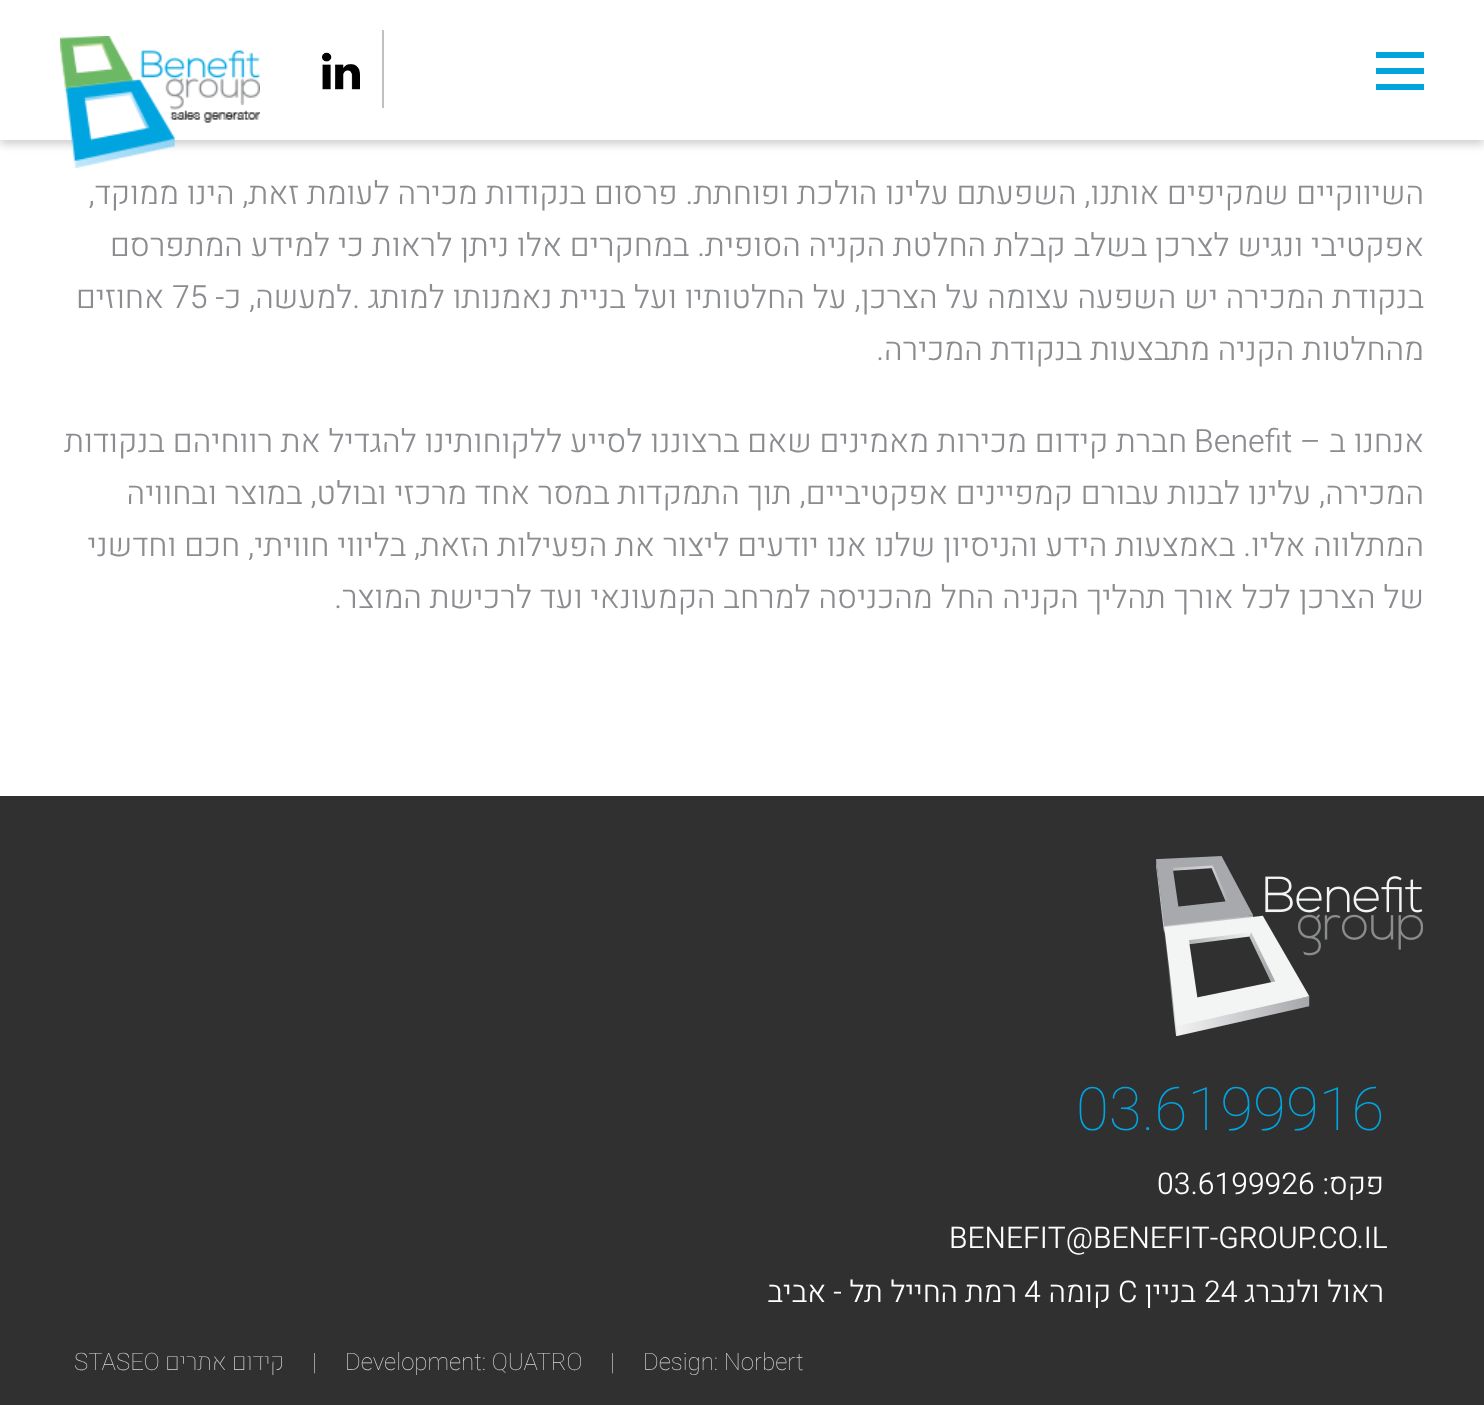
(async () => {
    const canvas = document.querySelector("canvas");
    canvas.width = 1484;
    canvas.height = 1405;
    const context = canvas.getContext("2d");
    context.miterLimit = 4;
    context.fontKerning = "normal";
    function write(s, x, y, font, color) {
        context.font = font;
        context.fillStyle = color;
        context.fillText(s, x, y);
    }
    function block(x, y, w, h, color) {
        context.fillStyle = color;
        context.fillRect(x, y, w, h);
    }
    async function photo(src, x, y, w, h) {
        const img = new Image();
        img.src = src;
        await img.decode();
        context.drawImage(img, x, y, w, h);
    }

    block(0, 0, 1484, 1405, "rgb(255, 255, 255)");
    context.fillStyle = "rgba(0, 0, 0, 0.2)";
    context.filter = "blur(5px)";
    context.beginPath();
    context.rect(0, 4, 1484, 140);
    context.fill();
    context.filter = "none";
    block(0, 0, 1484, 140, "rgb(255, 255, 255)");
    block(1376, 68, 48, 6, "rgb(0, 165, 224)");
    block(1376, 52, 48, 6, "rgb(0, 165, 224)");
    block(1376, 84, 48, 6, "rgb(0, 165, 224)");
    block(382, 30, 2, 78, "rgb(192, 192, 192)");
    await photo("media/1.png", 322, 52, 38, 38);
    await photo("media/2.png", 60, 36, 200, 132);
    context.direction = "rtl";
    write("השיווקיים שמקיפים אותנו, השפעתם עלינו הולכת ופוחתת. פרסום בנקודות מכירה לעומת זאת, הינו ממוקד,", 1424, 204, "300 32px Heebo", "rgb(138, 140, 143)");
    write("אפקטיבי ונגיש לצרכן בשלב קבלת החלטת הקניה הסופית. במחקרים אלו ניתן לראות כי למידע המתפרסם", 1424, 256, "300 32px Heebo", "rgb(138, 140, 143)");
    write("בנקודת המכירה יש השפעה עצומה על הצרכן, על החלטותיו ועל בניית נאמנותו למותג .למעשה, כ-", 1424, 308, "300 32px Heebo", "rgb(138, 140, 143)");
    context.direction = "ltr";
    write("75", 172, 308, "300 32px Heebo", "rgb(138, 140, 143)");
    context.direction = "rtl";
    write("אחוזים", 164, 308, "300 32px Heebo", "rgb(138, 140, 143)");
    write("מהחלטות הקניה מתבצעות בנקודת המכירה.", 1424, 360, "300 32px Heebo", "rgb(138, 140, 143)");
    write("אנחנו ב –", 1424, 452, "300 32px Heebo", "rgb(138, 140, 143)");
    context.direction = "ltr";
    write("Benefit", 1194, 452, "300 32px Heebo", "rgb(138, 140, 143)");
    context.direction = "rtl";
    write("חברת קידום מכירות מאמינים שאם ברצוננו לסייע ללקוחותינו להגדיל את רווחיהם בנקודות", 1187, 452, "300 32px Heebo", "rgb(138, 140, 143)");
    write("המכירה, עלינו לבנות עבורם קמפיינים אפקטיביים, תוך התמקדות במסר אחד מרכזי ובולט, במוצר ובחוויה", 1424, 504, "300 32px Heebo", "rgb(138, 140, 143)");
    write("המתלווה אליו. באמצעות הידע והניסיון שלנו אנו יודעים ליצור את הפעילות הזאת, בליווי חוויתי, חכם וחדשני", 1424, 556, "300 32px Heebo", "rgb(138, 140, 143)");
    write("של הצרכן לכל אורך תהליך הקניה החל מהכניסה למרחב הקמעונאי ועד לרכישת המוצר.", 1424, 608, "300 32px Heebo", "rgb(138, 140, 143)");
    block(0, 796, 1484, 609, "rgb(48, 48, 48)");
    await photo("media/3.png", 1156, 856, 267, 180);
    context.direction = "ltr";
    write("03.6199916", 1076, 1130, "100 60px Heebo", "rgb(0, 165, 224)");
    context.direction = "rtl";
    write("פקס:", 1384, 1194, "300 30px Heebo", "rgb(255, 255, 255)");
    context.direction = "ltr";
    write("03.6199926", 1157, 1194, "300 30px Heebo", "rgb(255, 255, 255)");
    write("BENEFIT@BENEFIT-GROUP.CO.IL", 949, 1248, "300 30px Heebo", "rgb(255, 255, 255)");
    context.direction = "rtl";
    write("ראול ולנברג", 1384, 1302, "300 30px Heebo", "rgb(255, 255, 255)");
    context.direction = "ltr";
    write("24", 1204, 1302, "300 30px Heebo", "rgb(255, 255, 255)");
    context.direction = "rtl";
    write("בניין", 1196, 1302, "300 30px Heebo", "rgb(255, 255, 255)");
    context.direction = "ltr";
    write("C", 1118, 1302, "300 30px Heebo", "rgb(255, 255, 255)");
    context.direction = "rtl";
    write("קומה", 1111, 1302, "300 30px Heebo", "rgb(255, 255, 255)");
    context.direction = "ltr";
    write("4", 1024, 1302, "300 30px Heebo", "rgb(255, 255, 255)");
    context.direction = "rtl";
    write("רמת החייל תל - אביב", 1017, 1302, "300 30px Heebo", "rgb(255, 255, 255)");
    context.direction = "ltr";
    write("Design: Norbert", 643, 1370, "100 24px Heebo", "rgb(213, 213, 213)");
    write("|", 610, 1370, "100 24px Heebo", "rgb(213, 213, 213)");
    write("Development: QUATRO", 345, 1370, "100 24px Heebo", "rgb(213, 213, 213)");
    write("|", 312, 1370, "100 24px Heebo", "rgb(213, 213, 213)");
    context.direction = "rtl";
    write("קידום אתרים", 284, 1370, "100 24px Heebo", "rgb(213, 213, 213)");
    context.direction = "ltr";
    write("STASEO", 74, 1370, "100 24px Heebo", "rgb(213, 213, 213)");
})();
